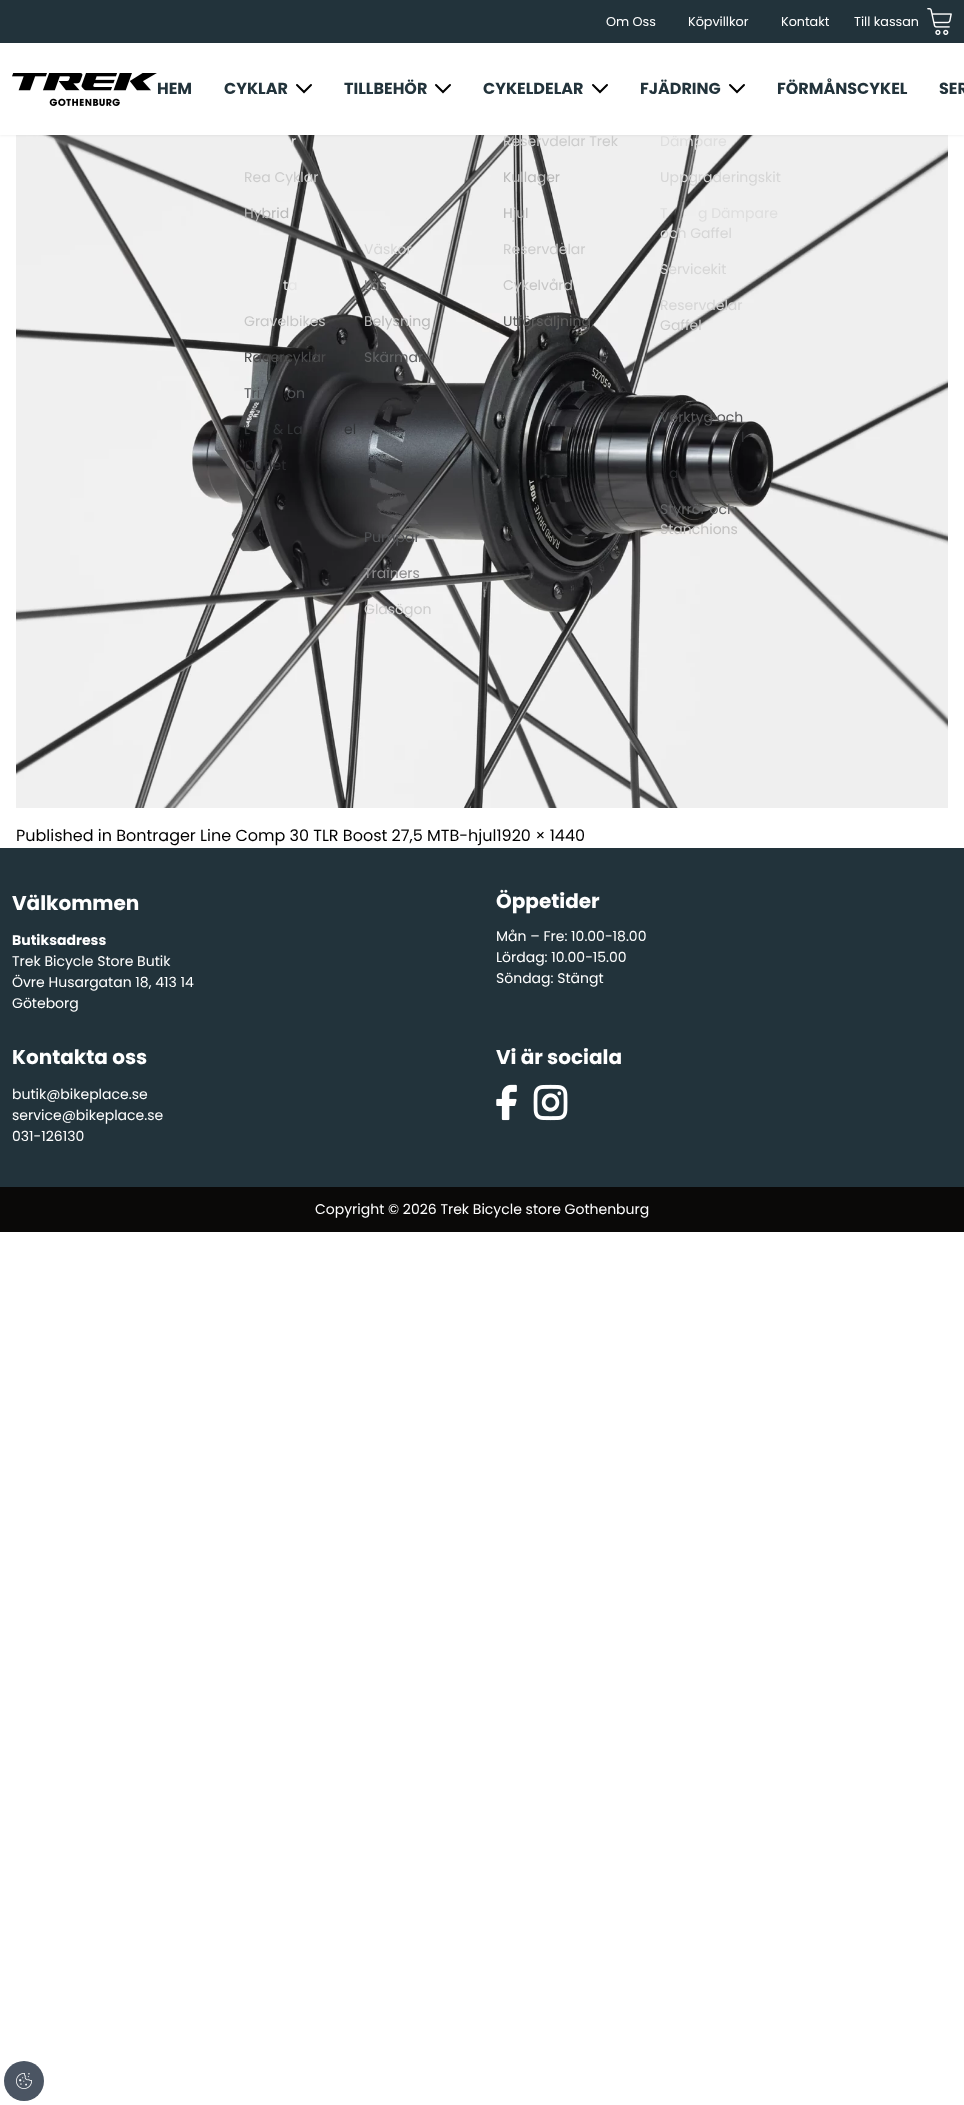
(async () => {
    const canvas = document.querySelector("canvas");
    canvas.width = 964;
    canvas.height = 2105;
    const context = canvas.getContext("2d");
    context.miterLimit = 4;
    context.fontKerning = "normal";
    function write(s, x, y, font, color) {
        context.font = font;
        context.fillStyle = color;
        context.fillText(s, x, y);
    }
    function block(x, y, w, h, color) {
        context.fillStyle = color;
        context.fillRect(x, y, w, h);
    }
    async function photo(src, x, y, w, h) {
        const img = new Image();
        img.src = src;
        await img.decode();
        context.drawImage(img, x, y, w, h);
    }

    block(0, 0, 964, 2105, "rgb(255, 255, 255)");
    block(0, 0, 964, 43, "rgb(34, 51, 59)");
    write("Om Oss", 606, 26, "12.75px Poppins", "rgb(255, 255, 255)");
    write("Köpvillkor", 688, 26, "12.75px Poppins", "rgb(255, 255, 255)");
    write("Kontakt", 781, 26, "12.75px Poppins", "rgb(255, 255, 255)");
    write("Till kassan", 854, 26, "12.75px Poppins", "rgb(255, 255, 255)");
    await photo("media/1.png", 927, 8, 25, 27);
    await photo("media/3.png", 16, 135, 932, 673);
    context.fillStyle = "rgba(0, 0, 0, 0.05)";
    context.filter = "blur(1px)";
    context.beginPath();
    context.rect(0, 44, 964, 92);
    context.fill();
    context.filter = "none";
    block(0, 43, 964, 92, "rgb(255, 255, 255)");
    await photo("media/2.png", 12, 73, 145, 33);
    write("HEM", 157, 94, "bold 16px Poppins", "rgb(34, 51, 59)");
    write("CYKLAR", 224, 94, "bold 16px Poppins", "rgb(34, 51, 59)");
    context.beginPath();
    context.moveTo(311, 85);
    context.lineTo(304, 92);
    context.lineTo(297, 85);
    context.strokeStyle = "rgb(0, 0, 0)";
    context.lineWidth = 2;
    context.lineCap = "round";
    context.stroke();
    write("r", 291, 146, "14px Poppins", "rgb(229, 229, 229)");
    write("Rea Cyklar", 244, 182, "14px Poppins", "rgb(204, 204, 204)");
    write("Hybrid", 244, 218, "14px Poppins", "rgb(185, 185, 185)");
    write("ta", 283, 290, "14px Poppins", "rgb(229, 229, 229)");
    write("Gravelbikes", 244, 326, "14px Poppins", "rgb(198, 198, 198)");
    write("Racercyklar", 244, 362, "14px Poppins", "rgb(74, 75, 76)");
    write("Tri", 244, 398, "14px Poppins", "rgb(80, 82, 85)");
    write("on", 287, 398, "14px Poppins", "rgb(80, 82, 85)");
    write("L", 244, 434, "14px Poppins", "rgb(51, 53, 56)");
    write("& La", 273, 434, "14px Poppins", "rgb(51, 53, 56)");
    write("el", 344, 434, "14px Poppins", "rgb(51, 53, 56)");
    write("Outlet", 244, 470, "14px Poppins", "rgb(43, 43, 46)");
    write("r", 253, 506, "14px Poppins", "rgb(43, 43, 46)");
    write("TILLBEHÖR", 344, 94, "bold 16px Poppins", "rgb(34, 51, 59)");
    context.beginPath();
    context.moveTo(450, 85);
    context.lineTo(443, 92);
    context.lineTo(436, 85);
    context.stroke();
    write("Väskor", 364, 254, "14px Poppins", "rgb(214, 214, 214)");
    write("Lås", 364, 290, "14px Poppins", "rgb(122, 122, 122)");
    write("Belysning", 364, 326, "14px Poppins", "rgb(185, 185, 185)");
    write("Skärmar", 364, 362, "14px Poppins", "rgb(98, 99, 101)");
    write("Pumpar", 364, 542, "14px Poppins", "rgb(80, 82, 85)");
    write("Trainers", 364, 578, "14px Poppins", "rgb(141, 140, 142)");
    write("Glasögon", 364, 614, "14px Poppins", "rgb(204, 204, 204)");
    write("CYKELDELAR", 483, 94, "bold 16px Poppins", "rgb(34, 51, 59)");
    context.beginPath();
    context.moveTo(607, 85);
    context.lineTo(600, 92);
    context.lineTo(593, 85);
    context.stroke();
    write("Reservdelar Trek", 503, 146, "14px Poppins", "rgb(204, 204, 204)");
    write("Kullager", 503, 182, "14px Poppins", "rgb(185, 185, 185)");
    write("Hjul", 503, 218, "14px Poppins", "rgb(185, 185, 185)");
    write("Reservdelar", 503, 254, "14px Poppins", "rgb(204, 204, 204)");
    write("Cykelvård", 503, 290, "14px Poppins", "rgb(198, 198, 198)");
    write("Utförsäljning", 503, 326, "14px Poppins", "rgb(95, 95, 95)");
    write("FJÄDRING", 640, 94, "bold 16px Poppins", "rgb(34, 51, 59)");
    context.beginPath();
    context.moveTo(744, 85);
    context.lineTo(737, 92);
    context.lineTo(730, 85);
    context.stroke();
    write("Dämpare", 660, 146, "14px Poppins", "rgb(222, 222, 222)");
    write("Uppgraderingskit", 660, 182, "14px Poppins", "rgb(214, 214, 214)");
    write("T", 660, 218, "14px Poppins", "rgb(222, 222, 222)");
    write("g Dämpare", 698, 218, "14px Poppins", "rgb(222, 222, 222)");
    write("och Gaffel", 660, 238, "14px Poppins", "rgb(214, 214, 214)");
    write("Servicekit", 660, 274, "14px Poppins", "rgb(214, 214, 214)");
    write("Reservdelar", 660, 310, "14px Poppins", "rgb(214, 214, 214)");
    write("Gaffel", 660, 330, "14px Poppins", "rgb(204, 204, 204)");
    write("Verktyg och", 660, 422, "14px Poppins", "rgb(87, 87, 89)");
    write("l", 741, 442, "14px Poppins", "rgb(51, 53, 56)");
    write("a", 669, 478, "14px Poppins", "rgb(43, 43, 46)");
    write("Styrrör och", 660, 514, "14px Poppins", "rgb(98, 99, 101)");
    write("Stanchions", 660, 534, "14px Poppins", "rgb(194, 193, 192)");
    write("FÖRMÅNSCYKEL", 777, 94, "bold 16px Poppins", "rgb(34, 51, 59)");
    write("SER", 939, 94, "bold 16px Poppins", "rgb(34, 51, 59)");
    write("Published in Bontrager Line Comp 30 TLR Boost 27,5 MTB-hjul1920 × 1440", 16, 841, "16px Poppins", "rgb(0, 0, 0)");
    block(0, 848, 964, 339, "rgb(34, 51, 59)");
    write("Välkommen", 12, 910, "bold 20px Poppins", "rgb(255, 255, 255)");
    write("Butiksadress", 12, 945, "bold 14px Poppins", "rgb(255, 255, 255)");
    write("Trek Bicycle Store Butik", 12, 966, "14px Poppins", "rgb(255, 255, 255)");
    write("Övre Husargatan 18, 413 14", 12, 987, "14px Poppins", "rgb(255, 255, 255)");
    write("Göteborg", 12, 1008, "14px Poppins", "rgb(255, 255, 255)");
    write("Öppetider", 496, 908, "bold 20px Poppins", "rgb(255, 255, 255)");
    write("Mån – Fre: 10.00-18.00", 496, 941, "14px Poppins", "rgb(255, 255, 255)");
    write("Lördag: 10.00-15.00", 496, 962, "14px Poppins", "rgb(255, 255, 255)");
    write("Söndag: Stängt", 496, 983, "14px Poppins", "rgb(255, 255, 255)");
    write("Kontakta oss", 12, 1064, "bold 20px Poppins", "rgb(255, 255, 255)");
    write("butik@bikeplace.se", 12, 1099, "14px Poppins", "rgb(255, 255, 255)");
    write("service@bikeplace.se", 12, 1120, "14px Poppins", "rgb(255, 255, 255)");
    write("031-126130", 12, 1141, "14px Poppins", "rgb(255, 255, 255)");
    write("Vi är sociala", 496, 1064, "bold 20px Poppins", "rgb(255, 255, 255)");
    await photo("media/4.png", 496, 1084, 21, 37);
    await photo("media/5.png", 533, 1084, 35, 37);
    block(0, 1187, 964, 45, "rgb(10, 9, 8)");
    write("Copyright © 2026 Trek Bicycle store Gothenburg", 315, 1214, "14px Poppins", "rgb(255, 255, 255)");
    context.fillStyle = "rgb(75, 85, 99)";
    context.beginPath();
    context.arc(24, 2081, 20, 0, Math.PI * 2);
    context.fill();
    await photo("media/6.png", 16, 2073, 16, 16);
})();
